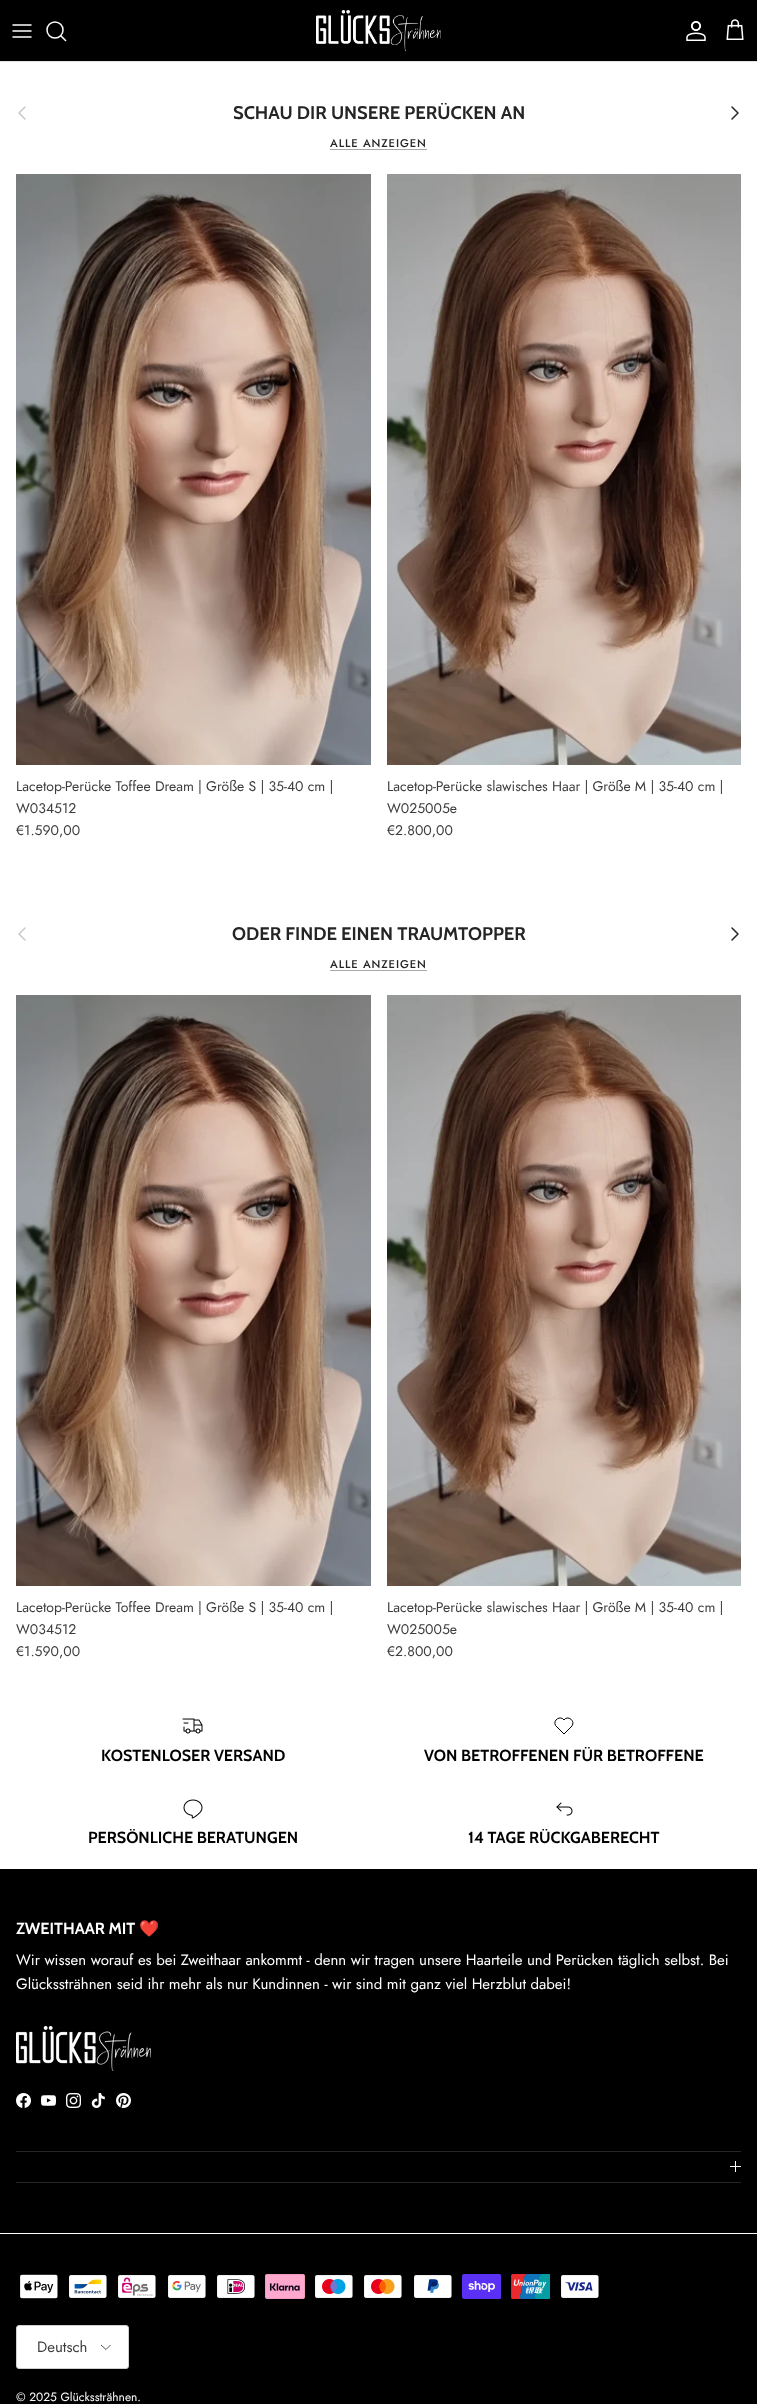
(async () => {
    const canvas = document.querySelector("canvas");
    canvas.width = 757;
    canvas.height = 2404;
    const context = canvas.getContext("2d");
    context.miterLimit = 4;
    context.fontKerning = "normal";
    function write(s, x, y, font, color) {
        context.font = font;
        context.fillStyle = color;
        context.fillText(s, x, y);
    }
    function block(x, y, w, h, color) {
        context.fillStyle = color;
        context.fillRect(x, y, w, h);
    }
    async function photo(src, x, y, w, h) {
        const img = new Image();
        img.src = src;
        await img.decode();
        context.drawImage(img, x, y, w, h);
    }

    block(0, 0, 757, 2404, "rgb(255, 255, 255)");
    block(0, 0, 757, 61, "rgb(0, 0, 0)");
    block(0, 61, 757, 1, "rgb(226, 226, 226)");
    context.beginPath();
    context.moveTo(13, 31);
    context.lineTo(31, 31);
    context.moveTo(13, 25);
    context.lineTo(31, 25);
    context.moveTo(13, 37);
    context.lineTo(31, 37);
    context.strokeStyle = "rgb(255, 255, 255)";
    context.lineWidth = 1.5;
    context.lineCap = "round";
    context.lineJoin = "round";
    context.stroke();
    context.beginPath();
    context.arc(55, 30, 8, 0, Math.PI * 2);
    context.stroke();
    context.beginPath();
    context.moveTo(61, 36);
    context.lineTo(65.5, 40.5);
    context.lineCap = "square";
    context.lineJoin = "miter";
    context.stroke();
    await photo("media/1.png", 316, 10, 125, 42);
    await photo("media/2.png", 686, 21, 20, 20);
    await photo("media/3.png", 726, 19, 18, 21);
    context.beginPath();
    context.moveTo(25, 119);
    context.lineTo(19, 113);
    context.lineTo(25, 107);
    context.strokeStyle = "rgb(201, 201, 201)";
    context.lineCap = "round";
    context.lineJoin = "round";
    context.stroke();
    write("SCHAU DIR UNSERE PERÜCKEN AN", 233, 119, "bold 18.4px Cabin", "rgb(37, 37, 37)");
    context.beginPath();
    context.moveTo(732, 119);
    context.lineTo(738, 113);
    context.lineTo(732, 107);
    context.strokeStyle = "rgb(37, 37, 37)";
    context.stroke();
    context.letterSpacing = "0.9px";
    write("ALLE ANZEIGEN", 330, 147, "500 11.25px Jost", "rgb(37, 37, 37)");
    block(330, 149, 97, 1, "rgb(166, 167, 167)");
    await photo("media/4.png", 16, 174, 355, 591);
    context.letterSpacing = "0px";
    write("Lacetop-Perücke Toffee Dream | Größe S | 35-40 cm |", 16, 791, "14px Jost", "rgb(61, 61, 61)");
    write("W034512", 16, 813, "14px Jost", "rgb(61, 61, 61)");
    write("€1.590,00", 16, 835, "14px Jost", "rgb(61, 61, 61)");
    await photo("media/5.png", 387, 174, 354, 591);
    write("Lacetop-Perücke slawisches Haar | Größe M | 35-40 cm |", 387, 791, "14px Jost", "rgb(61, 61, 61)");
    write("W025005e", 387, 813, "14px Jost", "rgb(61, 61, 61)");
    write("€2.800,00", 387, 835, "14px Jost", "rgb(61, 61, 61)");
    context.beginPath();
    context.moveTo(25, 940);
    context.lineTo(19, 934);
    context.lineTo(25, 928);
    context.strokeStyle = "rgb(201, 201, 201)";
    context.stroke();
    write("ODER FINDE EINEN TRAUMTOPPER", 232, 940, "bold 18.4px Cabin", "rgb(37, 37, 37)");
    context.beginPath();
    context.moveTo(732, 940);
    context.lineTo(738, 934);
    context.lineTo(732, 928);
    context.strokeStyle = "rgb(37, 37, 37)";
    context.stroke();
    context.letterSpacing = "0.9px";
    write("ALLE ANZEIGEN", 330, 968, "500 11.25px Jost", "rgb(37, 37, 37)");
    block(330, 970, 97, 1, "rgb(166, 167, 167)");
    await photo("media/4.png", 16, 995, 355, 591);
    context.letterSpacing = "0px";
    write("Lacetop-Perücke Toffee Dream | Größe S | 35-40 cm |", 16, 1612, "14px Jost", "rgb(61, 61, 61)");
    write("W034512", 16, 1634, "14px Jost", "rgb(61, 61, 61)");
    write("€1.590,00", 16, 1656, "14px Jost", "rgb(61, 61, 61)");
    await photo("media/5.png", 387, 995, 354, 591);
    write("Lacetop-Perücke slawisches Haar | Größe M | 35-40 cm |", 387, 1612, "14px Jost", "rgb(61, 61, 61)");
    write("W025005e", 387, 1634, "14px Jost", "rgb(61, 61, 61)");
    write("€2.800,00", 387, 1656, "14px Jost", "rgb(61, 61, 61)");
    await photo("media/6.png", 182, 1718, 21, 16);
    write("KOSTENLOSER VERSAND", 101, 1761, "bold 16.1px Cabin", "rgb(0, 0, 0)");
    context.beginPath();
    context.moveTo(571.5, 1726.5);
    context.lineTo(564, 1734);
    context.lineTo(555.5, 1725.5);
    context.bezierCurveTo(552.5, 1720, 560.5, 1715, 564, 1720);
    context.bezierCurveTo(568, 1714.5, 576.5, 1721.5, 571.5, 1726.5);
    context.strokeStyle = "rgb(0, 0, 0)";
    context.lineWidth = 1;
    context.stroke();
    write("VON BETROFFENEN FÜR BETROFFENE", 424, 1761, "bold 16.1px Cabin", "rgb(0, 0, 0)");
    await photo("media/7.png", 183, 1799, 20, 20);
    write("PERSÖNLICHE BERATUNGEN", 88, 1843, "bold 16.1px Cabin", "rgb(0, 0, 0)");
    await photo("media/8.png", 556, 1802, 17, 14);
    write("14 TAGE RÜCKGABERECHT", 468, 1843, "bold 16.1px Cabin", "rgb(0, 0, 0)");
    block(0, 1869, 757, 535, "rgb(0, 0, 0)");
    write("ZWEITHAAR MIT", 16, 1934, "bold 16.1px Cabin", "rgb(255, 255, 255)");
    write("❤️", 139, 1934, "bold 16.1px Noto Color Emoji", "rgb(255, 255, 255)");
    write("Wir wissen worauf es bei Zweithaar ankommt - denn wir tragen unsere Haarteile und Perücken täglich selbst. Bei", 16, 1965, "15px Jost", "rgb(255, 255, 255)");
    write("Glückssträhnen seid ihr mehr als nur Kundinnen - wir sind mit ganz viel Herzblut dabei!", 16, 1989, "15px Jost", "rgb(255, 255, 255)");
    await photo("media/9.png", 16, 2026, 135, 45);
    await photo("media/10.png", 16, 2093, 15, 15);
    await photo("media/11.png", 41, 2095, 15, 11);
    await photo("media/12.png", 66, 2093, 15, 15);
    await photo("media/13.png", 91, 2093, 14, 15);
    await photo("media/14.png", 116, 2093, 15, 15);
    block(16, 2151, 725, 1, "rgb(38, 38, 38)");
    block(16, 2182, 725, 1, "rgb(38, 38, 38)");
    block(735, 2161, 1, 11, "rgb(255, 255, 255)");
    block(730, 2166, 11, 1, "rgb(255, 255, 255)");
    block(0, 2233, 757, 1, "rgb(255, 255, 255)");
    await photo("media/15.png", 20, 2274, 38, 25);
    await photo("media/16.png", 69, 2275, 38, 23);
    await photo("media/17.png", 118, 2275, 38, 23);
    await photo("media/18.png", 168, 2275, 38, 23);
    await photo("media/19.png", 217, 2275, 38, 23);
    await photo("media/20.png", 265, 2274, 40, 25);
    await photo("media/21.png", 315, 2275, 38, 23);
    await photo("media/22.png", 364, 2275, 38, 23);
    await photo("media/23.png", 414, 2275, 38, 23);
    await photo("media/24.png", 462, 2274, 39, 25);
    await photo("media/25.png", 511, 2274, 39, 25);
    await photo("media/26.png", 561, 2275, 38, 23);
    context.beginPath();
    context.roundRect(16.5, 2325.5, 112, 43, 2.5);
    context.fill();
    context.strokeStyle = "rgb(207, 207, 207)";
    context.lineJoin = "miter";
    context.stroke();
    write("Deutsch", 37, 2352, "15px Jost", "rgb(61, 61, 61)");
    context.beginPath();
    context.moveTo(110.5, 2345);
    context.lineTo(106, 2349.5);
    context.lineTo(101, 2345);
    context.strokeStyle = "rgb(61, 61, 61)";
    context.lineWidth = 0.9;
    context.lineCap = "butt";
    context.stroke();
    write("© 2025 Glückssträhnen.", 16, 2401, "12px Jost", "rgb(255, 255, 255)");
})();
